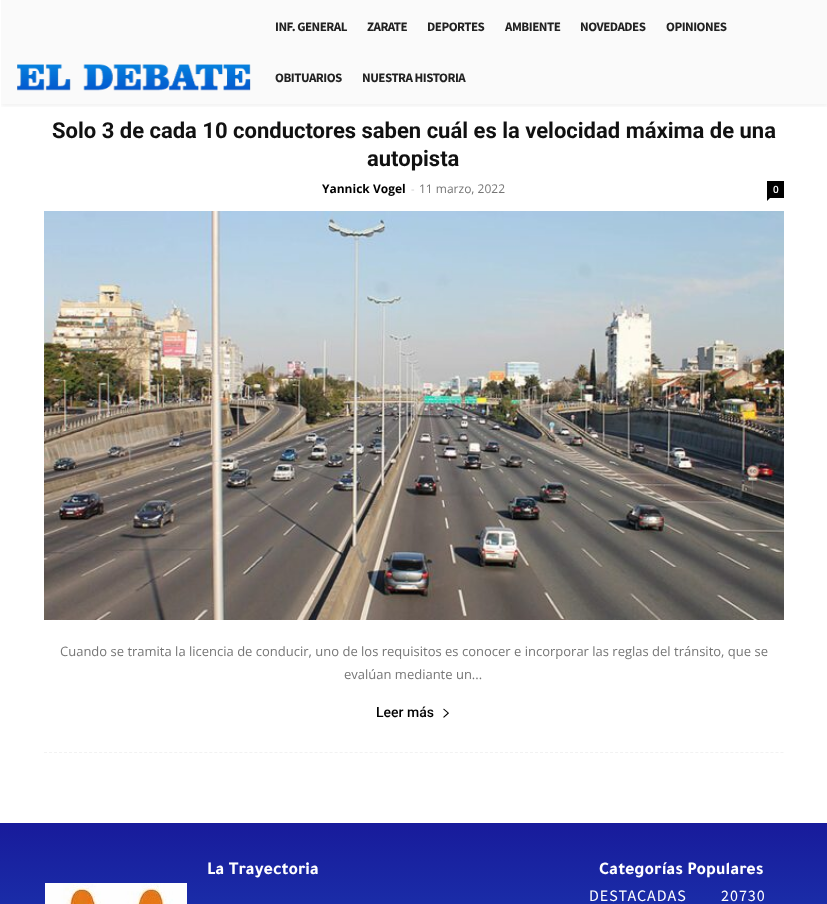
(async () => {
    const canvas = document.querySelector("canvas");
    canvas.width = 827;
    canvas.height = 904;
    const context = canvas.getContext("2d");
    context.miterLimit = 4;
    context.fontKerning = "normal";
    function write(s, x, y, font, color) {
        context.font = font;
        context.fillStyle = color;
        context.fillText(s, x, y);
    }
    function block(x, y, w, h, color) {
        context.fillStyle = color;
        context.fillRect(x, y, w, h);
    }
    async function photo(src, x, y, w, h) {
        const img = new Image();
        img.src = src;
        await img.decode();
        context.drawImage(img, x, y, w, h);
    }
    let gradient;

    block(0, 0, 827, 904, "rgb(255, 255, 255)");
    block(1, 0, 826, 104, "rgb(250, 250, 250)");
    await photo("media/1.png", 17, 64, 234, 27);
    context.save();
    context.beginPath();
    context.rect(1, 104, 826, 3);
    context.clip();
    context.fillStyle = "rgba(0, 0, 0, 0.06)";
    context.filter = "blur(2px)";
    context.beginPath();
    context.rect(1, 2, 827, 104);
    context.fill();
    context.filter = "none";
    context.restore();
    context.letterSpacing = "-0.5px";
    write("INF. GENERAL", 275, 31, "bold 13px Source Sans Pro", "rgb(34, 34, 34)");
    write("ZARATE", 367, 31, "bold 13px Source Sans Pro", "rgb(34, 34, 34)");
    write("DEPORTES", 427, 31, "bold 13px Source Sans Pro", "rgb(34, 34, 34)");
    write("AMBIENTE", 505, 31, "bold 13px Source Sans Pro", "rgb(34, 34, 34)");
    write("NOVEDADES", 580, 31, "bold 13px Source Sans Pro", "rgb(34, 34, 34)");
    write("OPINIONES", 666, 31, "bold 13px Source Sans Pro", "rgb(34, 34, 34)");
    write("OBITUARIOS", 275, 82, "bold 13px Source Sans Pro", "rgb(34, 34, 34)");
    write("NUESTRA HISTORIA", 362, 82, "bold 13px Source Sans Pro", "rgb(34, 34, 34)");
    context.beginPath();
    context.moveTo(44, 752.5);
    context.lineTo(784, 752.5);
    context.strokeStyle = "rgb(242, 242, 242)";
    context.setLineDash([3, 2.01]);
    context.stroke();
    context.letterSpacing = "0px";
    write("Solo 3 de cada 10 conductores saben cuál es la velocidad máxima de una", 52, 138, "bold 22px Roboto", "rgb(17, 17, 17)");
    write("autopista", 367, 166, "bold 22px Roboto", "rgb(17, 17, 17)");
    write("Yannick Vogel", 322, 193, "bold 12px Open Sans", "rgb(0, 0, 0)");
    write("-", 411, 193, "11px Open Sans", "rgb(204, 204, 204)");
    write("11 marzo, 2022", 419, 193, "12px Open Sans", "rgb(118, 118, 118)");
    block(767, 181, 17, 17, "rgb(0, 0, 0)");
    write("0", 773, 193, "600 10px Open Sans", "rgb(255, 255, 255)");
    context.fillStyle = "rgb(0, 0, 0)";
    context.beginPath();
    context.moveTo(767, 198);
    context.lineTo(770, 198);
    context.lineTo(767, 201);
    context.closePath();
    context.fill();
    await photo("media/2.png", 44, 211, 740, 409);
    write("Cuando se tramita la licencia de conducir, uno de los requisitos es conocer e incorporar las reglas del tránsito, que se", 60, 656, "13px Open Sans", "rgb(118, 118, 118)");
    write("evalúan mediante un...", 344, 679, "13px Open Sans", "rgb(118, 118, 118)");
    write("Leer más", 376, 717, "500 14px Roboto", "rgb(0, 0, 0)");
    await photo("media/3.png", 443, 708, 6, 10);
    gradient = context.createLinearGradient(414, 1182, 414, 823);
    gradient.addColorStop(0, "rgb(33, 102, 211)");
    gradient.addColorStop(1, "rgb(24, 27, 155)");
    context.fillStyle = gradient;
    context.fillRect(0, 823, 827, 81);
    await photo("media/4.png", 45, 883, 142, 21);
    write("La Trayectoria", 207, 874, "bold 18px Tajawal", "rgb(255, 255, 255)");
    write("Categorías Populares", 599, 874, "bold 18px Tajawal", "rgb(255, 255, 255)");
    context.letterSpacing = "1px";
    write("DESTACADAS", 589, 901, "16px Source Sans Pro", "rgb(255, 255, 255)");
    write("20730", 721, 901, "16px Source Sans Pro", "rgb(255, 255, 255)");
})();
